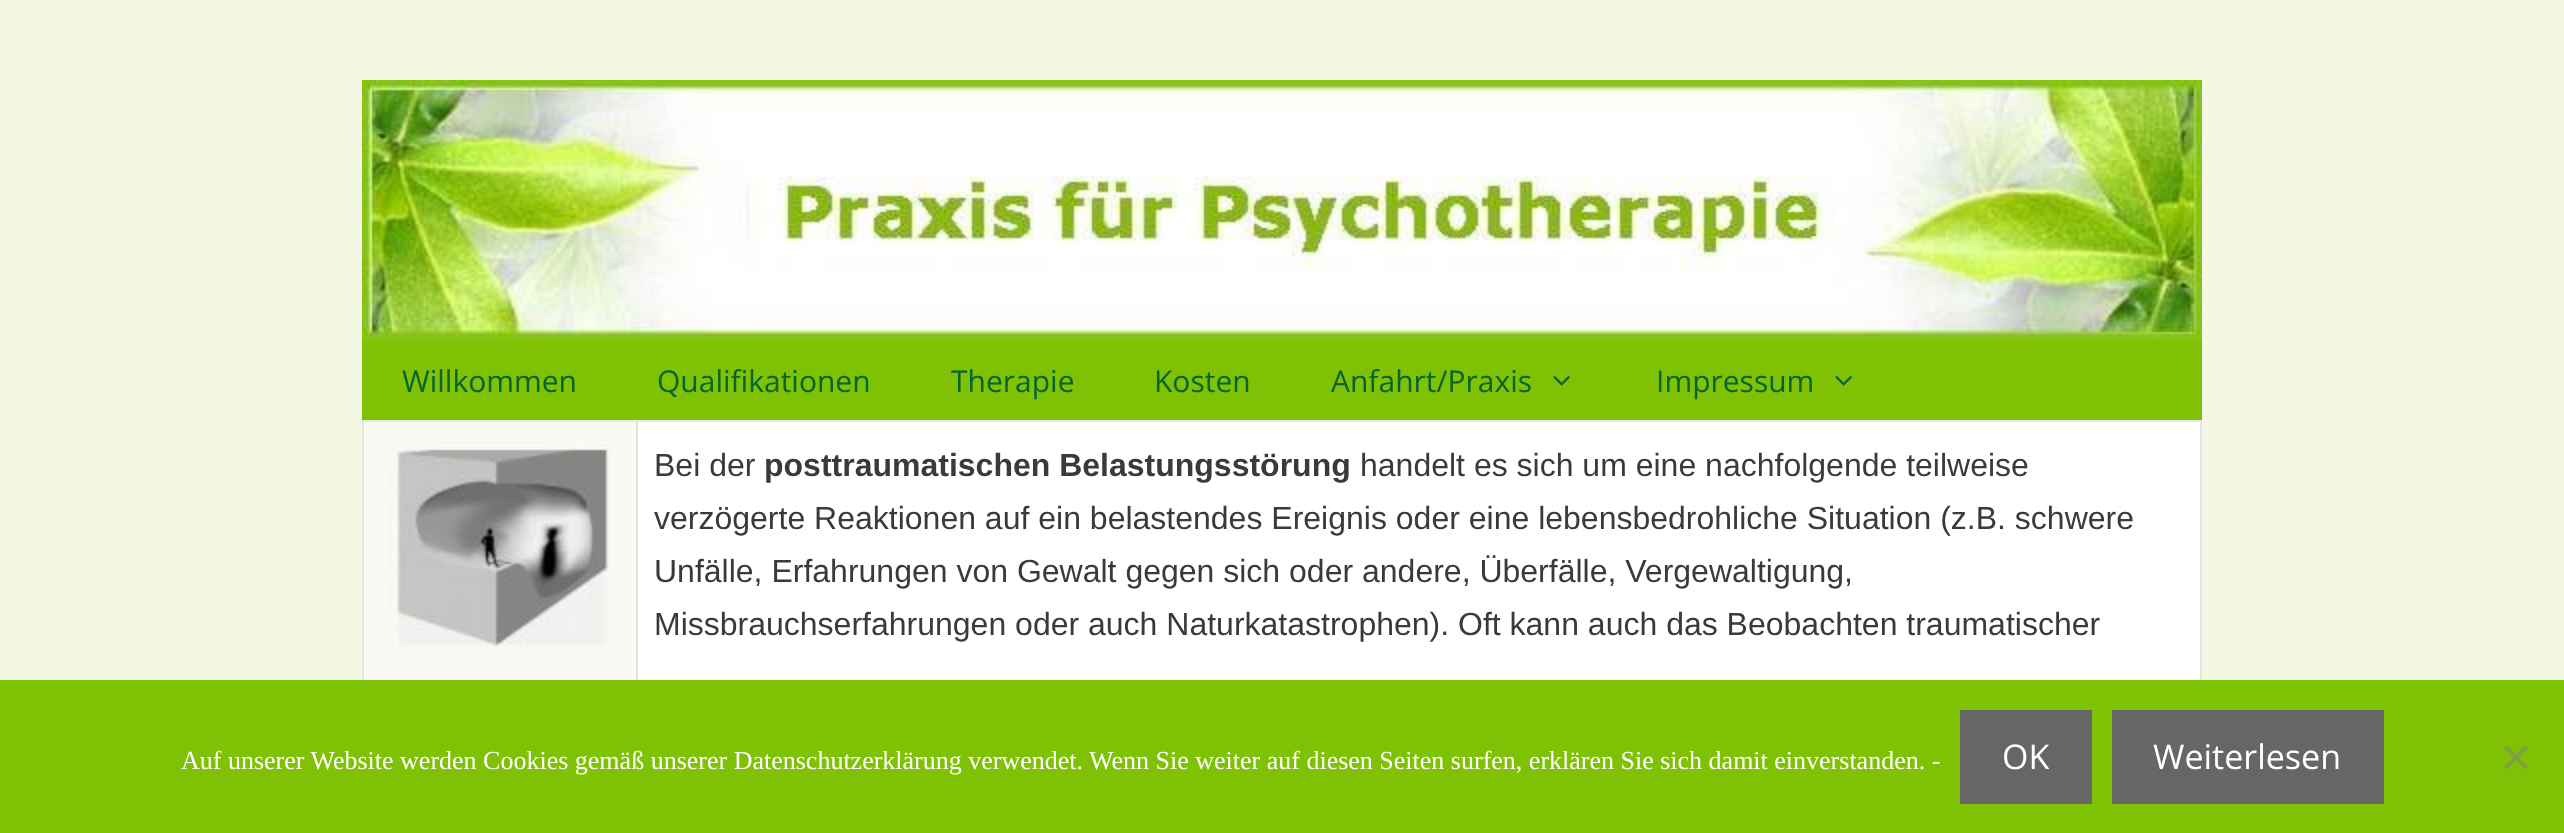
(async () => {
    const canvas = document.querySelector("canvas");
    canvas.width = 2564;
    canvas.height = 833;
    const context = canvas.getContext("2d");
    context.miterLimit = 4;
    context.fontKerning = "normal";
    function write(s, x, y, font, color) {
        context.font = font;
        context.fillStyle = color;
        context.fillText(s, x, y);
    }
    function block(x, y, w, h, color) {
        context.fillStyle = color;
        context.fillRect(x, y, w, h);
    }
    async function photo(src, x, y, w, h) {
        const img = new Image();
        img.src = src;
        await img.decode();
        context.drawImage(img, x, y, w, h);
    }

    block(0, 0, 2564, 833, "rgb(243, 248, 226)");
    await photo("media/1.png", 362, 80, 1840, 260);
    block(362, 340, 1840, 80, "rgb(127, 193, 5)");
    write("Willkommen", 402, 392, "30px Open Sans", "rgb(7, 100, 42)");
    write("Qualifikationen", 657, 392, "30px Open Sans", "rgb(7, 100, 42)");
    write("Therapie", 951, 392, "30px Open Sans", "rgb(7, 100, 42)");
    write("Kosten", 1154, 392, "30px Open Sans", "rgb(7, 100, 42)");
    write("Anfahrt/Praxis", 1331, 392, "30px Open Sans", "rgb(7, 100, 42)");
    await photo("media/2.png", 1553, 376, 17, 10);
    write("Impressum", 1656, 392, "30px Open Sans", "rgb(7, 100, 42)");
    await photo("media/2.png", 1835, 376, 17, 10);
    block(362, 420, 1838, 260, "rgb(255, 255, 255)");
    context.fillStyle = "rgb(230, 230, 230)";
    context.beginPath();
    context.moveTo(362, 420);
    context.lineTo(2202, 420);
    context.lineTo(2202, 422);
    context.lineTo(364, 422);
    context.closePath();
    context.fill();
    context.fillStyle = "rgba(0, 0, 0, 0.1)";
    context.beginPath();
    context.moveTo(362, 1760);
    context.lineTo(362, 420);
    context.lineTo(364, 422);
    context.lineTo(364, 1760);
    context.closePath();
    context.fill();
    block(364, 422, 272, 258, "rgb(249, 250, 244)");
    context.fillStyle = "rgb(224, 225, 220)";
    context.beginPath();
    context.moveTo(638, 422);
    context.lineTo(638, 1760);
    context.lineTo(636, 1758);
    context.lineTo(636, 422);
    context.closePath();
    context.fill();
    await photo("media/3.png", 388, 438, 224, 209);
    context.fillStyle = "rgb(230, 230, 230)";
    context.beginPath();
    context.moveTo(2202, 422);
    context.lineTo(2202, 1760);
    context.lineTo(2200, 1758);
    context.lineTo(2200, 422);
    context.closePath();
    context.fill();
    write("Bei der", 654, 476, "32px Liberation Sans", "rgb(58, 58, 58)");
    write("posttraumatischen Belastungsstörung", 764, 476, "bold 32px Liberation Sans", "rgb(58, 58, 58)");
    write("handelt es sich um eine nachfolgende teilweise", 1360, 476, "32px Liberation Sans", "rgb(58, 58, 58)");
    write("verzögerte Reaktionen auf ein belastendes Ereignis oder eine lebensbedrohliche Situation (z.B. schwere", 654, 529, "32px Liberation Sans", "rgb(58, 58, 58)");
    write("Unfälle, Erfahrungen von Gewalt gegen sich oder andere, Überfälle, Vergewaltigung,", 654, 582, "32px Liberation Sans", "rgb(58, 58, 58)");
    write("Missbrauchserfahrungen oder auch Naturkatastrophen). Oft kann auch das Beobachten traumatischer", 654, 635, "32px Liberation Sans", "rgb(58, 58, 58)");
    block(0, 680, 2564, 153, "rgb(127, 193, 5)");
    write("Auf unserer Website werden Cookies gemäß unserer Datenschutzerklärung verwendet. Wenn Sie weiter auf diesen Seiten surfen, erklären Sie sich damit einverstanden. -", 181, 769, "26px Liberation Serif", "rgb(255, 255, 255)");
    block(1960, 710, 132, 94, "rgb(102, 102, 102)");
    write("OK", 2002, 769, "34px Open Sans", "rgb(255, 255, 255)");
    block(2112, 710, 272, 94, "rgb(102, 102, 102)");
    write("Weiterlesen", 2153, 769, "34px Open Sans", "rgb(255, 255, 255)");
    context.fillStyle = "rgb(128, 161, 67)";
    context.beginPath();
    context.moveTo(2525, 745.5);
    context.lineTo(2528, 748.5);
    context.lineTo(2507, 769.5);
    context.lineTo(2504, 766.5);
    context.closePath();
    context.fill();
    context.beginPath();
    context.moveTo(2504, 748.5);
    context.lineTo(2507, 745.5);
    context.lineTo(2528, 766.5);
    context.lineTo(2525, 769.5);
    context.closePath();
    context.fill();
})();
